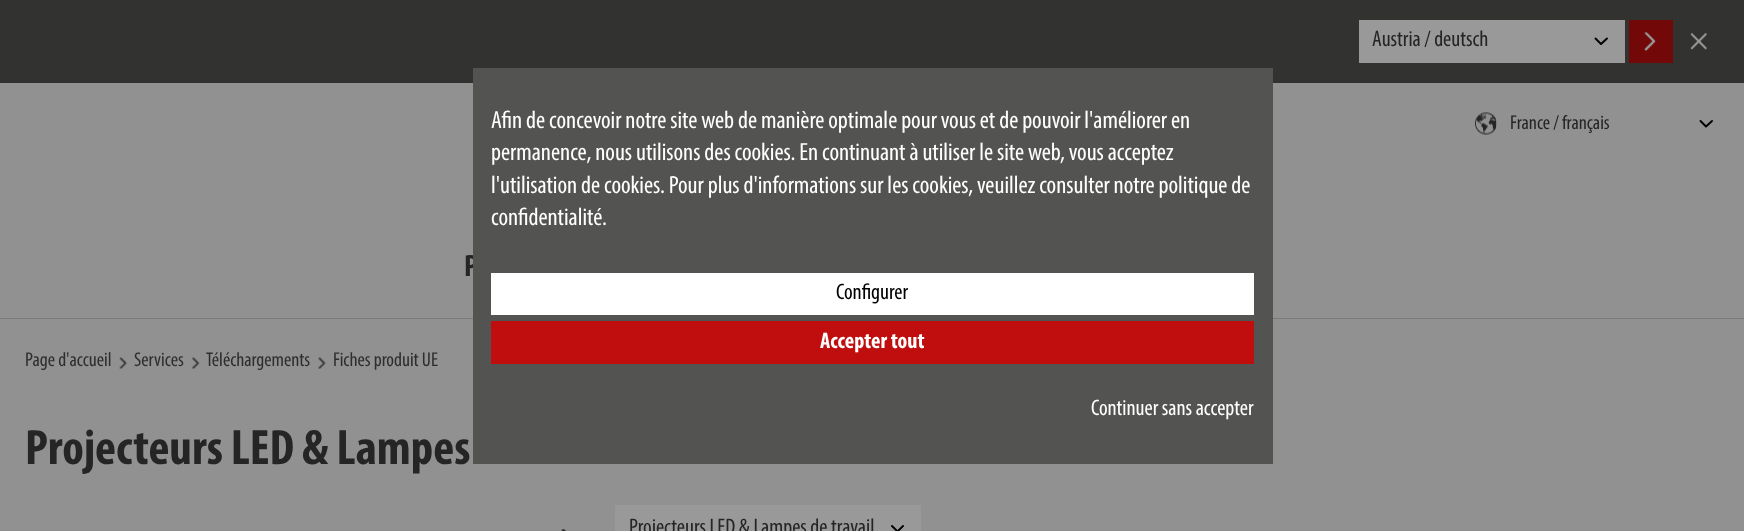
(async () => {
    const canvas = document.querySelector("canvas");
    canvas.width = 1744;
    canvas.height = 531;
    const context = canvas.getContext("2d");
    context.miterLimit = 4;
    context.fontKerning = "normal";
    function write(s, x, y, font, color) {
        context.font = font;
        context.fillStyle = color;
        context.fillText(s, x, y);
    }
    function block(x, y, w, h, color) {
        context.fillStyle = color;
        context.fillRect(x, y, w, h);
    }
    async function photo(src, x, y, w, h) {
        const img = new Image();
        img.src = src;
        await img.decode();
        context.drawImage(img, x, y, w, h);
    }

    block(0, 0, 1744, 531, "rgb(145, 145, 145)");
    block(0, 0, 1744, 83, "rgb(50, 50, 49)");
    block(1359, 20, 266, 43, "rgb(153, 153, 153)");
    context.beginPath();
    context.moveTo(1595.5, 38.5);
    context.lineTo(1601, 44);
    context.lineTo(1607, 38.5);
    context.strokeStyle = "rgb(0, 0, 0)";
    context.lineWidth = 1.9;
    context.lineCap = "round";
    context.lineJoin = "round";
    context.stroke();
    write("Austria / deutsch", 1372, 46, "22.5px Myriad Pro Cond", "rgb(38, 37, 37)");
    block(1629, 20, 44, 43, "rgb(115, 8, 8)");
    await photo("media/1.png", 1644, 32, 12, 20);
    await photo("media/2.png", 1690, 33, 17, 17);
    write("P", 464, 276, "bold 31px Myriad Pro Cond", "rgb(38, 37, 37)");
    block(0, 318, 1744, 1, "rgb(122, 122, 122)");
    block(473, 68, 800, 396, "rgb(83, 83, 82)");
    write("Afin de concevoir notre site web de manière optimale pour vous et de pouvoir l'améliorer en", 491, 128, "25px Myriad Pro Cond", "rgb(255, 255, 255)");
    write("permanence, nous utilisons des cookies. En continuant à utiliser le site web, vous acceptez", 491, 160, "25px Myriad Pro Cond", "rgb(255, 255, 255)");
    write("l'utilisation de cookies. Pour plus d'informations sur les cookies, veuillez consulter notre politique de", 491, 193, "25px Myriad Pro Cond", "rgb(255, 255, 255)");
    write("confidentialité.", 491, 225, "25px Myriad Pro Cond", "rgb(255, 255, 255)");
    block(491, 273, 763, 42, "rgb(255, 255, 255)");
    write("Configurer", 836, 299, "22.5px Myriad Pro Cond", "rgb(0, 0, 0)");
    block(491, 321, 763, 43, "rgb(192, 13, 13)");
    write("Accepter tout", 820, 348, "bold 22.5px Myriad Pro Cond", "rgb(255, 255, 255)");
    write("Continuer sans accepter", 1091, 415, "22.5px Myriad Pro Cond", "rgb(255, 255, 255)");
    await photo("media/3.png", 1475, 112, 22, 23);
    context.beginPath();
    context.moveTo(1700.5, 121);
    context.lineTo(1706, 126.5);
    context.lineTo(1712, 121);
    context.stroke();
    write("France / français", 1510, 129, "20px Myriad Pro Cond", "rgb(38, 37, 37)");
    write("Page d'accueil", 25, 366, "20px Myriad Pro Cond", "rgb(46, 46, 46)");
    await photo("media/4.png", 119, 357, 8, 12);
    write("Services", 134, 366, "20px Myriad Pro Cond", "rgb(46, 46, 46)");
    await photo("media/5.png", 192, 357, 8, 12);
    write("Téléchargements", 206, 366, "20px Myriad Pro Cond", "rgb(46, 46, 46)");
    await photo("media/6.png", 318, 357, 8, 12);
    write("Fiches produit UE", 333, 366, "20px Myriad Pro Cond", "rgb(46, 46, 46)");
    write("Projecteurs LED & Lampes", 25, 464, "bold 50px Myriad Pro Cond", "rgb(38, 37, 37)");
    await photo("media/7.png", 561, 529, 6, 2);
    block(615, 505, 306, 26, "rgb(153, 153, 153)");
    context.beginPath();
    context.moveTo(892, 526);
    context.lineTo(897.5, 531.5);
    context.lineTo(903, 526);
    context.stroke();
    write("Projecteurs LED & Lampes de travail", 629, 534, "22.5px Myriad Pro Cond", "rgb(38, 37, 37)");
})();
